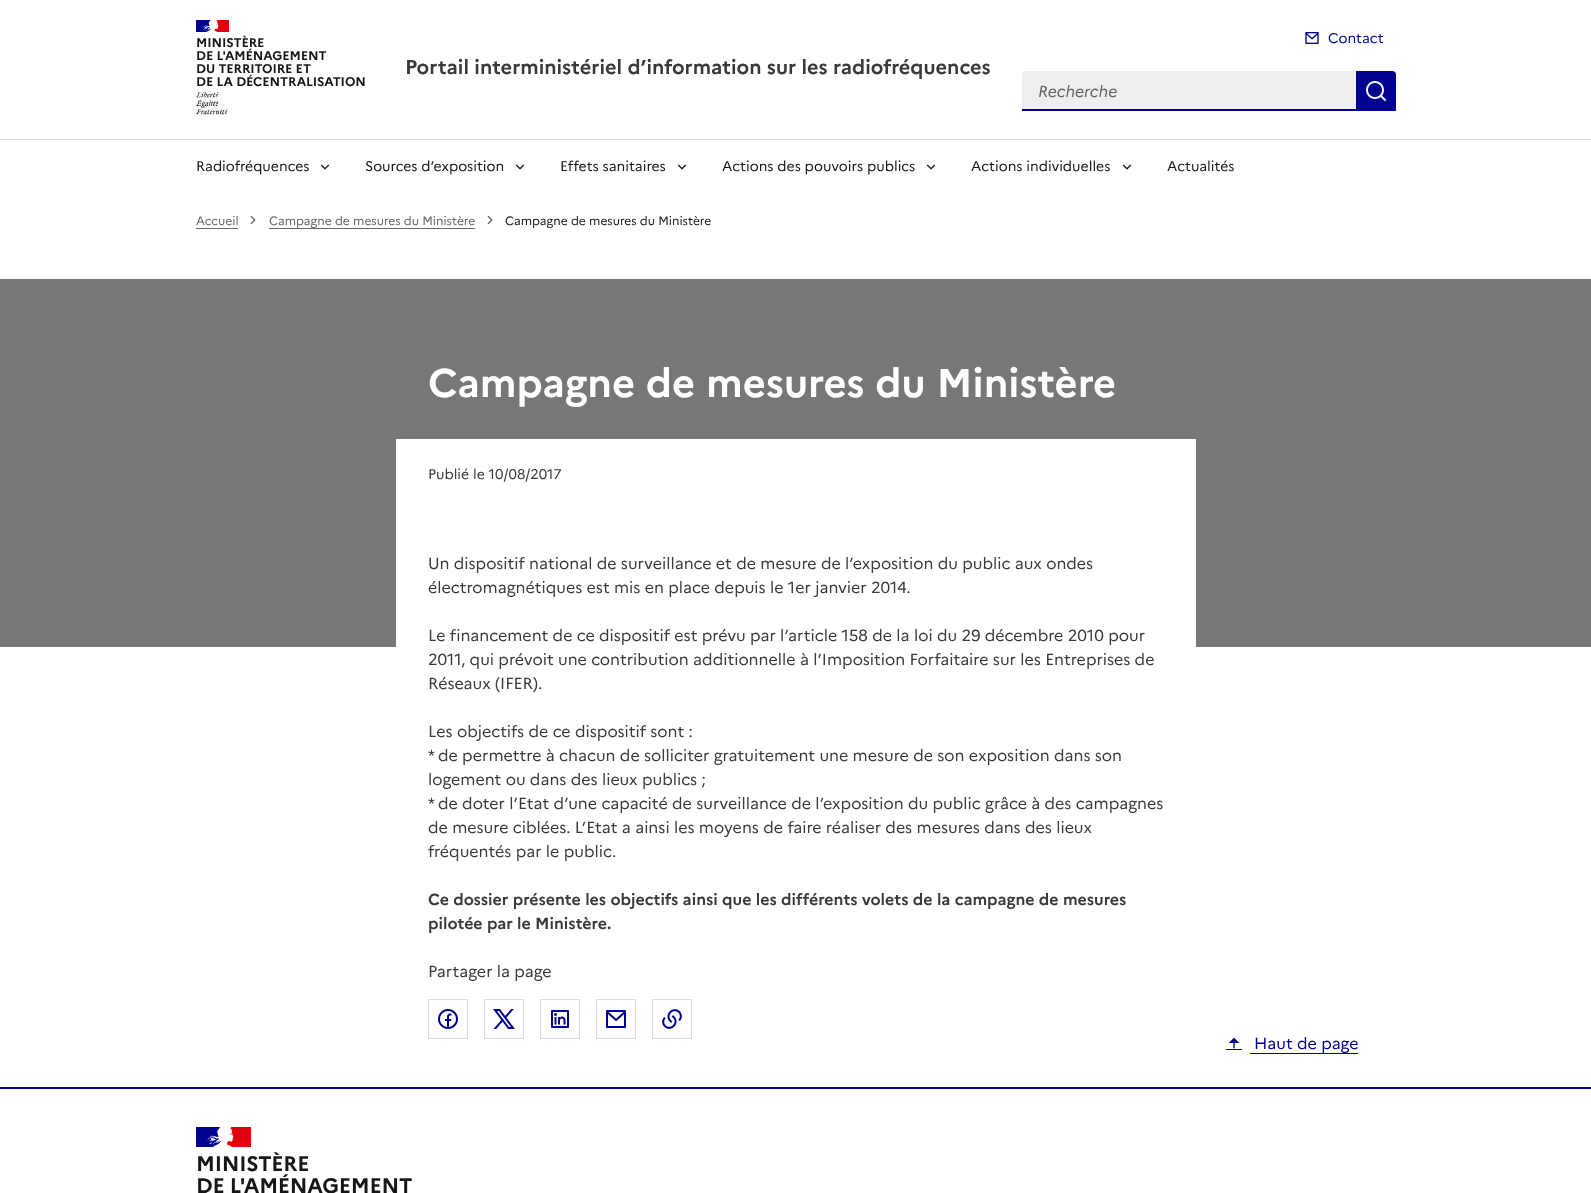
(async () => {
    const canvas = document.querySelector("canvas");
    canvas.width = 1591;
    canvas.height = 1193;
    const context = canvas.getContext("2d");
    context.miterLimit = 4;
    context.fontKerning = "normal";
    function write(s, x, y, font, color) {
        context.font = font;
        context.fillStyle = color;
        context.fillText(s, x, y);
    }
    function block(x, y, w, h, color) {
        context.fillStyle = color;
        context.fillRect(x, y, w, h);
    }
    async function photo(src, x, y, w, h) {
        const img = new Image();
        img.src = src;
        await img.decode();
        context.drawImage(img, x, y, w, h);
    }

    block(0, 0, 1591, 1193, "rgb(255, 255, 255)");
    block(196, 20, 16, 12, "rgb(0, 0, 145)");
    block(214, 20, 15, 12, "rgb(225, 0, 15)");
    await photo("media/1.png", 203, 20, 16, 12);
    context.letterSpacing = "-0.1px";
    write("MINISTÈRE", 196, 47, "bold 12.6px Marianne", "rgb(22, 22, 22)");
    write("DE L'AMÉNAGEMENT", 196, 60, "bold 12.6px Marianne", "rgb(22, 22, 22)");
    write("DU TERRITOIRE ET", 196, 73, "bold 12.6px Marianne", "rgb(22, 22, 22)");
    write("DE LA DÉCENTRALISATION", 196, 86, "bold 12.6px Marianne", "rgb(22, 22, 22)");
    await photo("media/2.png", 196, 92, 32, 24);
    context.letterSpacing = "0px";
    write("Portail interministériel d’information sur les radiofréquences", 405, 74, "bold 20px Marianne", "rgb(58, 58, 58)");
    await photo("media/3.png", 1305, 32, 14, 12);
    write("Contact", 1328, 43, "14px Marianne", "rgb(0, 0, 145)");
    context.fillStyle = "rgb(238, 238, 238)";
    context.beginPath();
    context.roundRect(1022, 71, 334, 40, [4, 0, 0, 0]);
    context.fill();
    block(1022, 109, 334, 2, "rgb(0, 0, 145)");
    write("Recherche", 1038, 97, "italic 16px Marianne", "rgb(102, 102, 102)");
    context.fillStyle = "rgb(0, 0, 145)";
    context.beginPath();
    context.roundRect(1356, 71, 40, 40, [0, 4, 0, 0]);
    context.fill();
    await photo("media/4.png", 1366, 81, 21, 21);
    block(0, 139, 1591, 1, "rgb(221, 221, 221)");
    write("Radiofréquences", 196, 171, "14px Marianne", "rgb(22, 22, 22)");
    await photo("media/5.png", 320, 164, 10, 6);
    write("Sources d’exposition", 365, 171, "14px Marianne", "rgb(22, 22, 22)");
    await photo("media/5.png", 515, 164, 10, 6);
    write("Effets sanitaires", 560, 171, "14px Marianne", "rgb(22, 22, 22)");
    await photo("media/5.png", 677, 164, 10, 6);
    write("Actions des pouvoirs publics", 722, 171, "14px Marianne", "rgb(22, 22, 22)");
    await photo("media/5.png", 926, 164, 10, 6);
    write("Actions individuelles", 971, 171, "14px Marianne", "rgb(22, 22, 22)");
    await photo("media/5.png", 1122, 164, 10, 6);
    write("Actualités", 1167, 171, "14px Marianne", "rgb(22, 22, 22)");
    write("Accueil", 196, 225, "12px Marianne", "rgb(102, 102, 102)");
    block(196, 228, 42, 1, "rgb(102, 102, 102)");
    await photo("media/6.png", 250, 215, 6, 10);
    write("Campagne de mesures du Ministère", 269, 225, "12px Marianne", "rgb(102, 102, 102)");
    block(269, 228, 206, 1, "rgb(102, 102, 102)");
    await photo("media/6.png", 487, 215, 6, 10);
    write("Campagne de mesures du Ministère", 505, 225, "12px Marianne", "rgb(22, 22, 22)");
    block(0, 279, 1591, 368, "rgb(121, 118, 118)");
    write("Campagne de mesures du Ministère", 428, 397, "bold 40px Marianne", "rgb(255, 255, 255)");
    block(396, 439, 800, 208, "rgb(255, 255, 255)");
    write("Publié le 10/08/2017", 428, 479, "14px Marianne", "rgb(58, 58, 58)");
    write("Un dispositif national de surveillance et de mesure de l’exposition du public aux ondes", 428, 569, "16px Marianne", "rgb(58, 58, 58)");
    write("électromagnétiques est mis en place depuis le 1er janvier 2014.", 428, 593, "16px Marianne", "rgb(58, 58, 58)");
    write("Le financement de ce dispositif est prévu par l’article 158 de la loi du 29 décembre 2010 pour", 428, 641, "16px Marianne", "rgb(58, 58, 58)");
    write("2011, qui prévoit une contribution additionnelle à l’Imposition Forfaitaire sur les Entreprises de", 428, 665, "16px Marianne", "rgb(58, 58, 58)");
    write("Réseaux (IFER).", 428, 689, "16px Marianne", "rgb(58, 58, 58)");
    write("Les objectifs de ce dispositif sont :", 428, 737, "16px Marianne", "rgb(58, 58, 58)");
    write("* de permettre à chacun de solliciter gratuitement une mesure de son exposition dans son", 428, 761, "16px Marianne", "rgb(58, 58, 58)");
    write("logement ou dans des lieux publics ;", 428, 785, "16px Marianne", "rgb(58, 58, 58)");
    write("* de doter l’Etat d’une capacité de surveillance de l’exposition du public grâce à des campagnes", 428, 809, "16px Marianne", "rgb(58, 58, 58)");
    write("de mesure ciblées. L’Etat a ainsi les moyens de faire réaliser des mesures dans des lieux", 428, 833, "16px Marianne", "rgb(58, 58, 58)");
    write("fréquentés par le public.", 428, 857, "16px Marianne", "rgb(58, 58, 58)");
    write("Ce dossier présente les objectifs ainsi que les différents volets de la campagne de mesures", 428, 905, "bold 16px Marianne", "rgb(58, 58, 58)");
    write("pilotée par le Ministère.", 428, 929, "bold 16px Marianne", "rgb(58, 58, 58)");
    write("Partager la page", 428, 977, "16px Marianne", "rgb(58, 58, 58)");
    context.strokeStyle = "rgb(221, 221, 221)";
    context.strokeRect(428.5, 999.5, 39, 39);
    await photo("media/7.png", 438, 1009, 20, 20);
    context.strokeRect(484.5, 999.5, 39, 39);
    await photo("media/8.png", 493, 1009, 22, 20);
    context.strokeRect(540.5, 999.5, 39, 39);
    await photo("media/9.png", 551, 1010, 18, 18);
    context.strokeRect(596.5, 999.5, 39, 39);
    await photo("media/10.png", 606, 1010, 20, 18);
    context.strokeRect(652.5, 999.5, 39, 39);
    await photo("media/11.png", 662, 1009, 20, 20);
    block(1226, 1049, 16, 1, "rgb(0, 0, 145)");
    block(1250, 1053, 108, 1, "rgb(0, 0, 145)");
    await photo("media/12.png", 1228, 1037, 12, 12);
    write("Haut de page", 1254, 1049, "16px Marianne", "rgb(0, 0, 145)");
    block(0, 1087, 1591, 2, "rgb(0, 0, 145)");
    block(196, 1127, 26, 20, "rgb(0, 0, 145)");
    block(227, 1127, 24, 20, "rgb(225, 0, 15)");
    await photo("media/13.png", 207, 1127, 27, 20);
    context.letterSpacing = "-0.25px";
    write("MINISTÈRE", 196, 1171, "bold 21px Marianne", "rgb(22, 22, 22)");
    write("DE L'AMÉNAGEMENT", 196, 1193, "bold 21px Marianne", "rgb(22, 22, 22)");
})();
